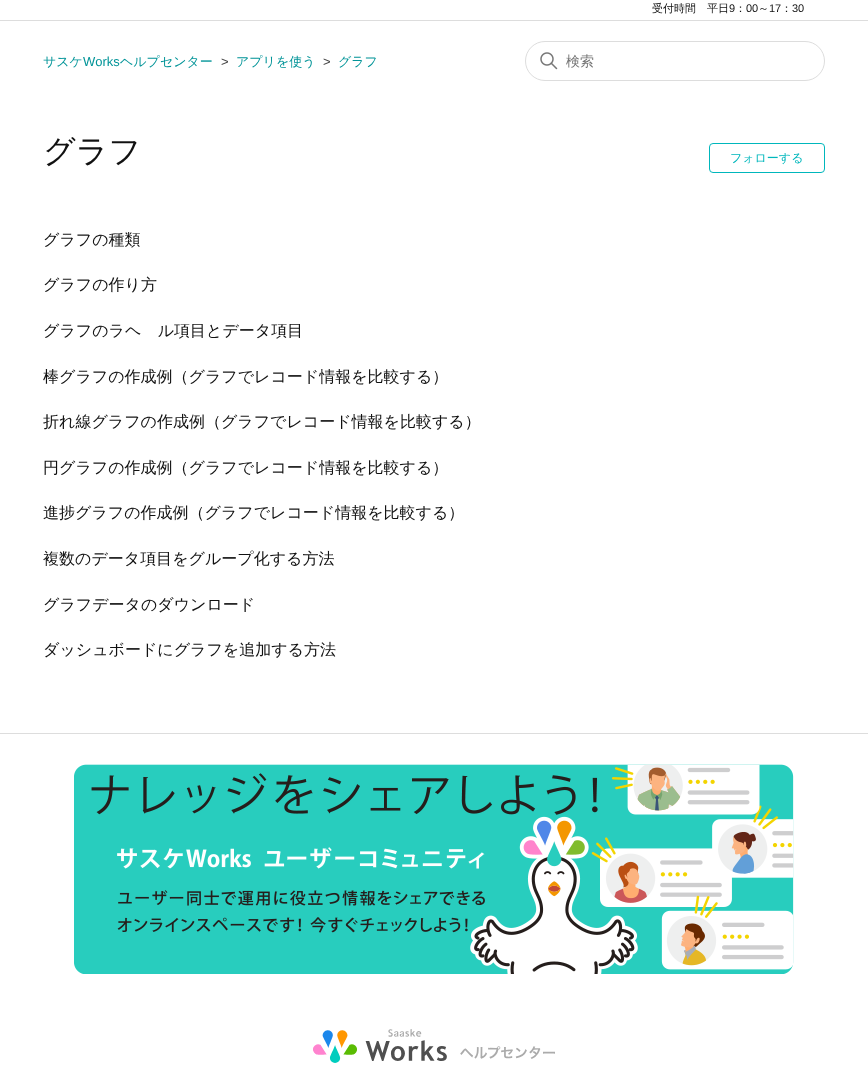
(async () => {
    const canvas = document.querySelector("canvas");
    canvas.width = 868;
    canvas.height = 1082;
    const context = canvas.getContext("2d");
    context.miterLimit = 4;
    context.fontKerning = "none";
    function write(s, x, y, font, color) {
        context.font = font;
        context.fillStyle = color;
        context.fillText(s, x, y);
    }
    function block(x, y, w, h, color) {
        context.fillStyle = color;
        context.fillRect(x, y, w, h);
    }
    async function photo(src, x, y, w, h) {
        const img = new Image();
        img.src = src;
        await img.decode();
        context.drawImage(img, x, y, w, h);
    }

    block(0, 0, 868, 1082, "rgb(255, 255, 255)");
    write("受付時間　平日", 652, 12, "500 11px WenQuanYi Zen Hei", "rgb(17, 17, 17)");
    write("9", 729, 12, "11px Liberation Sans", "rgb(17, 17, 17)");
    write("：", 735, 12, "500 11px WenQuanYi Zen Hei", "rgb(17, 17, 17)");
    write("00", 746, 12, "11px Liberation Sans", "rgb(17, 17, 17)");
    write("～", 758, 12, "500 11px WenQuanYi Zen Hei", "rgb(17, 17, 17)");
    write("17", 769, 12, "11px Liberation Sans", "rgb(17, 17, 17)");
    write("：", 781, 12, "500 11px WenQuanYi Zen Hei", "rgb(17, 17, 17)");
    write("30", 792, 12, "11px Liberation Sans", "rgb(17, 17, 17)");
    block(0, 20, 868, 1, "rgb(221, 221, 221)");
    write("サスケ", 43, 66, "500 13px WenQuanYi Zen Hei", "rgb(2, 148, 152)");
    write("Works", 83, 66, "13px Liberation Sans", "rgb(2, 148, 152)");
    write("ヘルプセンター", 120, 66, "500 13px WenQuanYi Zen Hei", "rgb(2, 148, 152)");
    write(">", 221, 66, "13px Liberation Sans", "rgb(68, 68, 68)");
    write("アプリを使う", 236, 66, "500 13px WenQuanYi Zen Hei", "rgb(2, 148, 152)");
    write(">", 323, 66, "13px Liberation Sans", "rgb(68, 68, 68)");
    write("グラフ", 338, 66, "500 13px WenQuanYi Zen Hei", "rgb(2, 148, 152)");
    context.beginPath();
    context.roundRect(525.5, 41.5, 299, 39, 19.5);
    context.strokeStyle = "rgb(221, 221, 221)";
    context.stroke();
    await photo("media/1.png", 540, 52, 18, 18);
    write("検索", 566, 66, "500 14px WenQuanYi Zen Hei", "rgb(117, 117, 117)");
    write("グラフ", 43, 162, "500 32px WenQuanYi Zen Hei", "rgb(17, 17, 17)");
    context.beginPath();
    context.roundRect(709.5, 143.5, 115, 29, 3.5);
    context.strokeStyle = "rgb(0, 183, 188)";
    context.stroke();
    write("フォローする", 730, 162, "500 12px WenQuanYi Zen Hei", "rgb(0, 183, 188)");
    write("グラフの種類", 43, 245, "500 16px WenQuanYi Zen Hei", "rgb(17, 17, 17)");
    write("グラフの作り方", 43, 290, "500 16px WenQuanYi Zen Hei", "rgb(17, 17, 17)");
    write("グラフのラベル項目とデータ項目", 43, 336, "500 16px WenQuanYi Zen Hei", "rgb(17, 17, 17)");
    write("棒グラフの作成例（グラフでレコード情報を比較する）", 43, 382, "500 16px WenQuanYi Zen Hei", "rgb(17, 17, 17)");
    write("折れ線グラフの作成例（グラフでレコード情報を比較する）", 43, 427, "500 16px WenQuanYi Zen Hei", "rgb(17, 17, 17)");
    write("円グラフの作成例（グラフでレコード情報を比較する）", 43, 473, "500 16px WenQuanYi Zen Hei", "rgb(17, 17, 17)");
    write("進捗グラフの作成例（グラフでレコード情報を比較する）", 43, 518, "500 16px WenQuanYi Zen Hei", "rgb(17, 17, 17)");
    write("複数のデータ項⽬をグループ化する方法", 43, 564, "500 16px WenQuanYi Zen Hei", "rgb(17, 17, 17)");
    write("グラフデータのダウンロード", 43, 610, "500 16px WenQuanYi Zen Hei", "rgb(17, 17, 17)");
    write("ダッシュボードにグラフを追加する方法", 43, 655, "500 16px WenQuanYi Zen Hei", "rgb(17, 17, 17)");
    block(0, 733, 868, 1, "rgb(221, 221, 221)");
    await photo("media/2.png", 74, 764, 720, 210);
    await photo("media/3.png", 313, 1029, 242, 34);
})();
